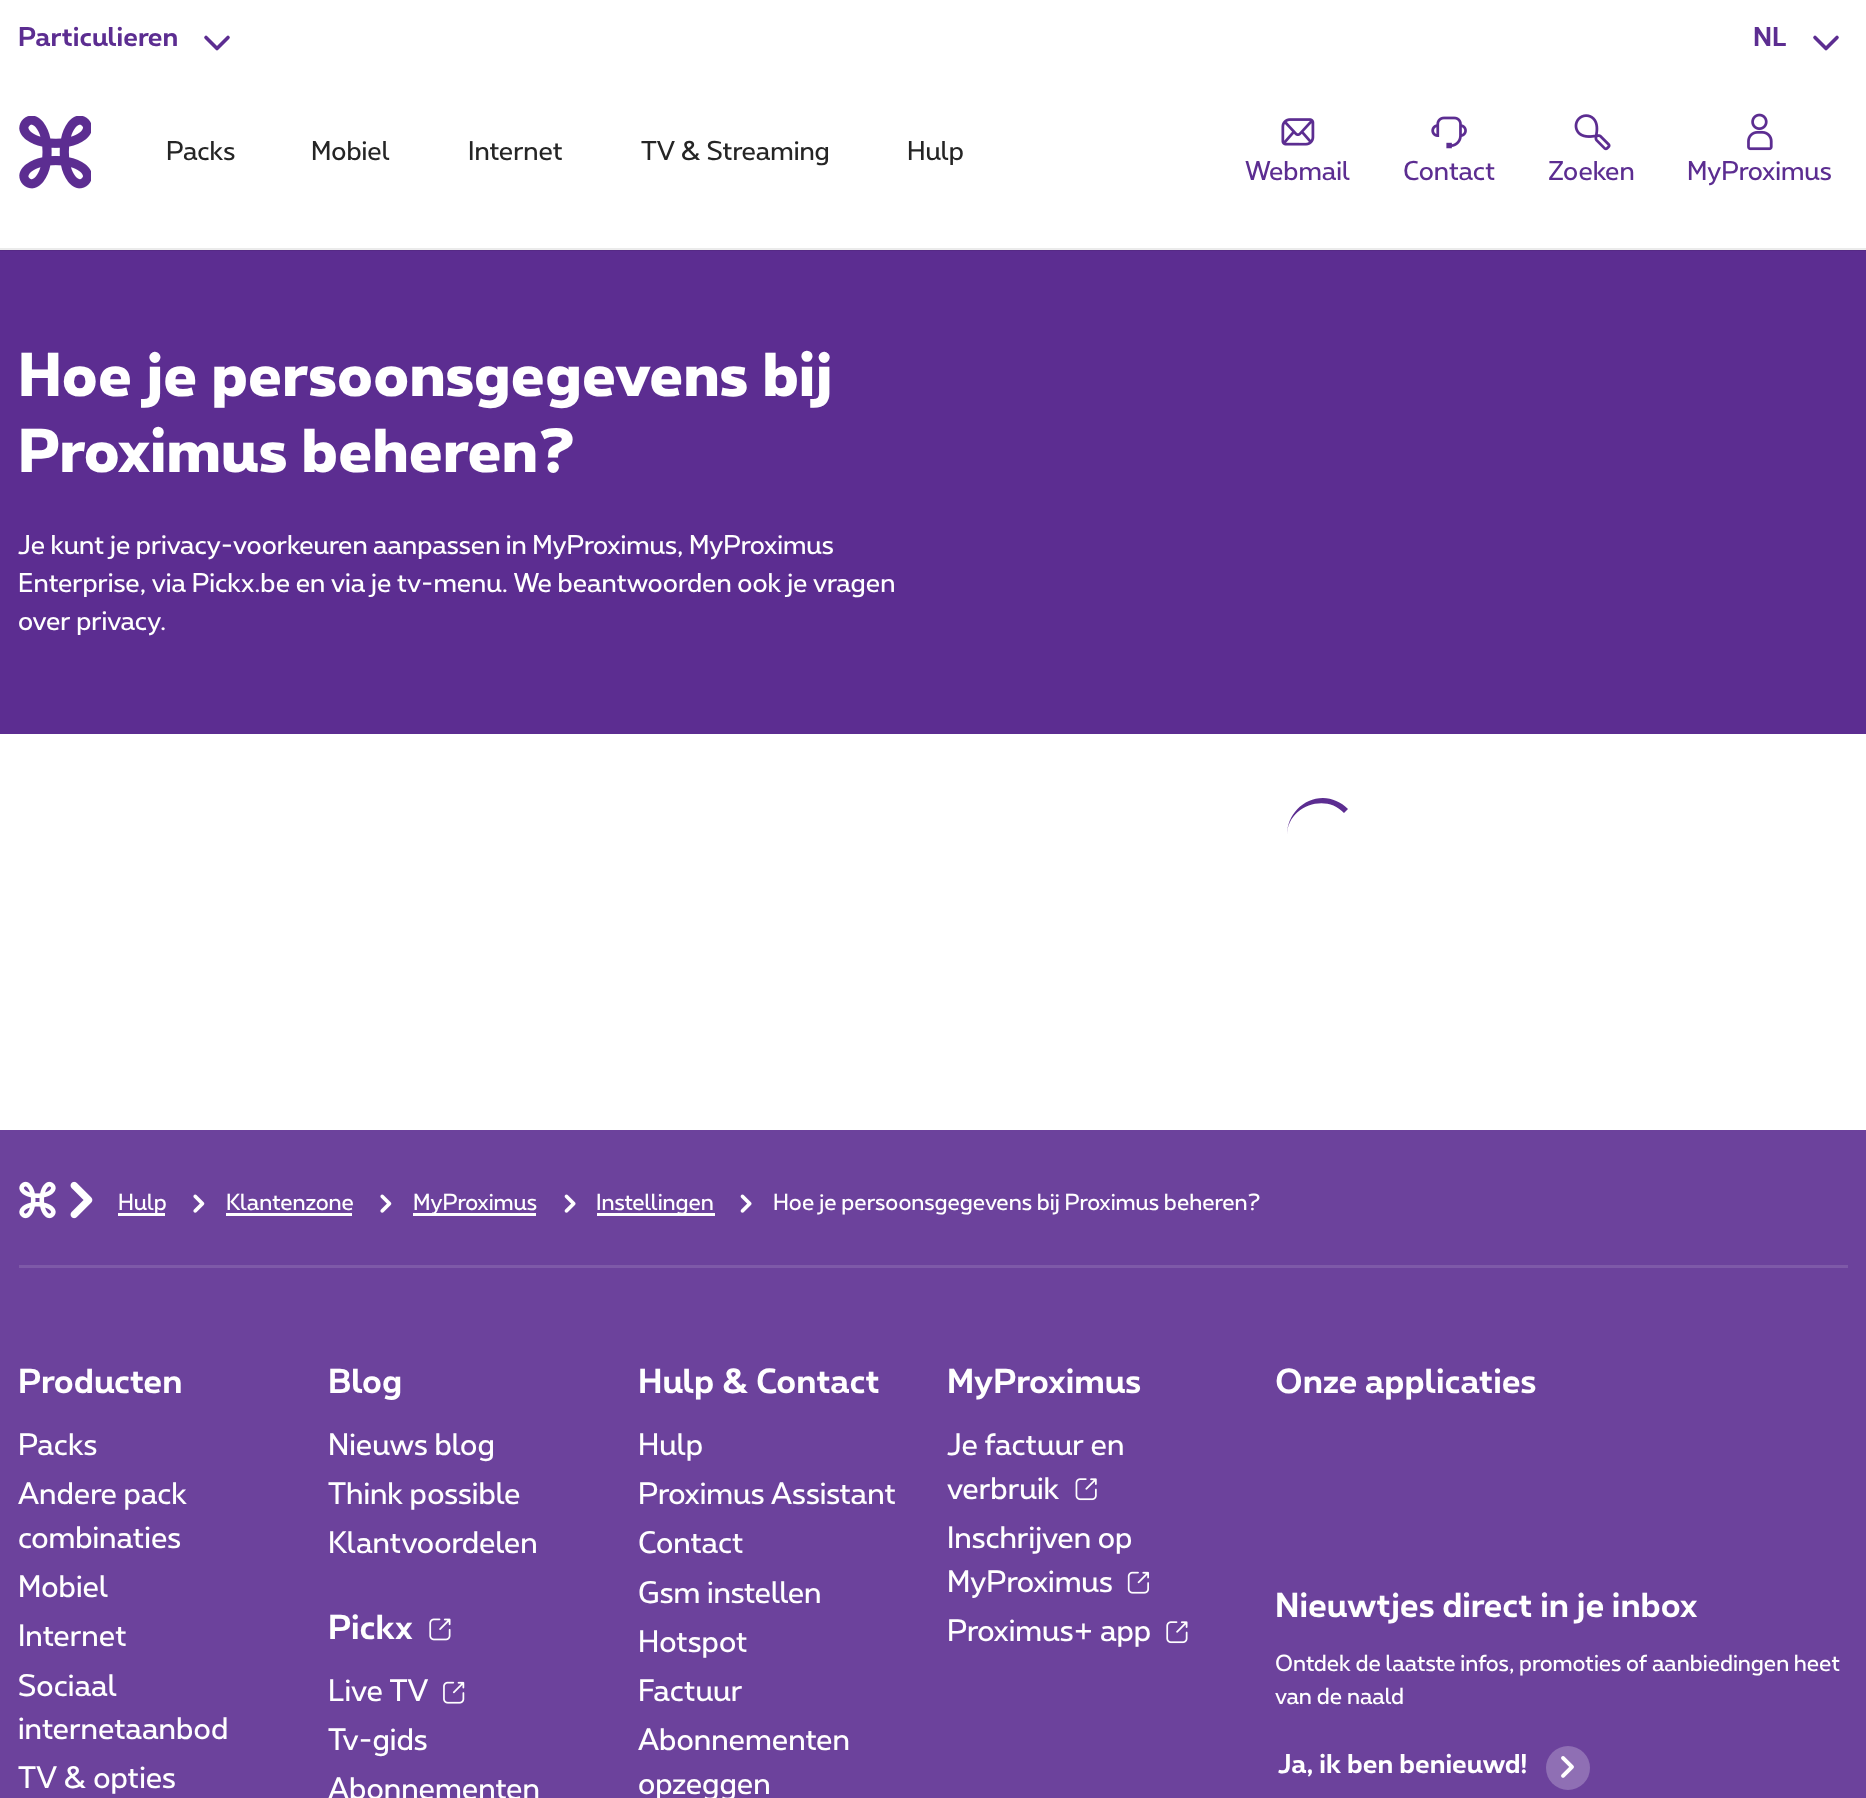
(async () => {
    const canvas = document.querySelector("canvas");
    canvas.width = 1866;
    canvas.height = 1798;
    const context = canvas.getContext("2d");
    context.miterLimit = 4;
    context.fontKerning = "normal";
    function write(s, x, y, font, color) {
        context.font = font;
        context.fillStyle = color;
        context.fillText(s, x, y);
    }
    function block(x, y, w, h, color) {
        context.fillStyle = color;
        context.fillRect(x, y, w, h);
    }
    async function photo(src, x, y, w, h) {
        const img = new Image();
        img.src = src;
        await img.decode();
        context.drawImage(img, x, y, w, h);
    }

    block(0, 0, 1866, 1798, "rgb(255, 255, 255)");
    block(0, 248, 1866, 2, "rgb(235, 235, 235)");
    write("Particulieren", 18, 46, "bold 25.55px 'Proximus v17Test'", "rgb(92, 45, 145)");
    context.beginPath();
    context.moveTo(228, 37.5);
    context.lineTo(217, 48.5);
    context.lineTo(206, 37.5);
    context.strokeStyle = "rgb(92, 45, 145)";
    context.lineWidth = 3.6;
    context.lineCap = "round";
    context.lineJoin = "round";
    context.stroke();
    write("NL", 1753, 46, "bold 25.55px 'Proximus v17Test'", "rgb(92, 45, 145)");
    context.beginPath();
    context.moveTo(1837, 37.5);
    context.lineTo(1826, 48.5);
    context.lineTo(1815, 37.5);
    context.stroke();
    await photo("media/1.png", 19, 116, 72, 73);
    write("Packs", 166, 160, "25.55px 'Proximus v17Test'", "rgb(37, 37, 37)");
    write("Mobiel", 311, 160, "25.55px 'Proximus v17Test'", "rgb(37, 37, 37)");
    write("Internet", 468, 160, "25.55px 'Proximus v17Test'", "rgb(37, 37, 37)");
    write("TV & Streaming", 641, 160, "25.55px 'Proximus v17Test'", "rgb(37, 37, 37)");
    write("Hulp", 907, 160, "25.55px 'Proximus v17Test'", "rgb(37, 37, 37)");
    await photo("media/2.png", 1281, 118, 34, 28);
    write("Webmail", 1245, 180, "25.55px 'Proximus v17Test'", "rgb(92, 45, 145)");
    await photo("media/3.png", 1431, 116, 36, 33);
    write("Contact", 1403, 180, "25.55px 'Proximus v17Test'", "rgb(92, 45, 145)");
    await photo("media/4.png", 1574, 114, 37, 37);
    write("Zoeken", 1548, 180, "25.55px 'Proximus v17Test'", "rgb(92, 45, 145)");
    await photo("media/5.png", 1747, 113, 26, 38);
    write("MyProximus", 1687, 180, "25.55px 'Proximus v17Test'", "rgb(92, 45, 145)");
    block(0, 251, 1866, 483, "rgb(92, 45, 145)");
    block(0, 250, 1866, 1, "rgb(85, 41, 133)");
    write("Hoe je persoonsgegevens bij", 18, 396, "800 58.4px 'Proximus v17Test'", "rgb(255, 255, 255)");
    write("Proximus beheren?", 18, 472, "800 58.4px 'Proximus v17Test'", "rgb(255, 255, 255)");
    context.wordSpacing = "-0.25px";
    write("Je kunt je privacy-voorkeuren aanpassen in MyProximus, MyProximus", 18, 554, "25.55px 'Proximus v17Test'", "rgb(255, 255, 255)");
    context.wordSpacing = "-0.1px";
    write("Enterprise, via Pickx.be en via je tv-menu. We beantwoorden ook je vragen", 18, 592, "25.55px 'Proximus v17Test'", "rgb(255, 255, 255)");
    context.wordSpacing = "0px";
    write("over privacy.", 18, 630, "25.55px 'Proximus v17Test'", "rgb(255, 255, 255)");
    context.fillStyle = "rgb(92, 45, 145)";
    context.beginPath();
    context.moveTo(1323, 798);
    context.bezierCurveTo(1332, 798, 1341, 802, 1348, 809);
    context.lineTo(1344, 813);
    context.bezierCurveTo(1325, 792, 1287, 807, 1287, 835);
    context.bezierCurveTo(1287, 815, 1303, 798, 1323, 798);
    context.closePath();
    context.fill();
    block(0, 1130, 1866, 668, "rgb(108, 66, 156)");
    block(19, 1265, 1829, 3, "rgb(126, 89, 168)");
    await photo("media/6.png", 19, 1181, 37, 38);
    await photo("media/7.png", 70, 1181, 23, 38);
    block(118, 1213, 47, 3, "rgb(255, 255, 255)");
    write("Hulp", 118, 1210, "21.9px 'Proximus v17Test'", "rgb(255, 255, 255)");
    await photo("media/8.png", 193, 1194, 12, 19);
    write("Klantenzone", 226, 1210, "21.9px 'Proximus v17Test'", "rgb(255, 255, 255)");
    block(226, 1213, 126, 3, "rgb(255, 255, 255)");
    await photo("media/8.png", 380, 1194, 12, 19);
    block(413, 1213, 123, 3, "rgb(255, 255, 255)");
    write("MyProximus", 413, 1210, "21.9px 'Proximus v17Test'", "rgb(255, 255, 255)");
    await photo("media/9.png", 564, 1194, 12, 19);
    block(597, 1213, 118, 3, "rgb(255, 255, 255)");
    write("Instellingen", 596, 1210, "21.9px 'Proximus v17Test'", "rgb(255, 255, 255)");
    await photo("media/9.png", 740, 1194, 12, 19);
    context.wordSpacing = "-0.25px";
    write("Hoe je persoonsgegevens bij Proximus beheren?", 773, 1210, "21.9px 'Proximus v17Test'", "rgb(255, 255, 255)");
    context.wordSpacing = "0px";
    write("Producten", 18, 1393, "bold 32.75px 'Proximus v17Test'", "rgb(255, 255, 255)");
    write("Packs", 18, 1455, "29.25px 'Proximus v17Test'", "rgb(255, 255, 255)");
    write("Andere pack", 18, 1504, "29.25px 'Proximus v17Test'", "rgb(255, 255, 255)");
    write("combinaties", 18, 1548, "29.25px 'Proximus v17Test'", "rgb(255, 255, 255)");
    write("Mobiel", 18, 1597, "29.25px 'Proximus v17Test'", "rgb(255, 255, 255)");
    write("Internet", 18, 1646, "29.25px 'Proximus v17Test'", "rgb(255, 255, 255)");
    write("Sociaal", 18, 1696, "29.25px 'Proximus v17Test'", "rgb(255, 255, 255)");
    write("internetaanbod", 18, 1739, "29.25px 'Proximus v17Test'", "rgb(255, 255, 255)");
    write("TV & opties", 18, 1788, "29.25px 'Proximus v17Test'", "rgb(255, 255, 255)");
    write("Blog", 328, 1393, "bold 32.75px 'Proximus v17Test'", "rgb(255, 255, 255)");
    write("Nieuws blog", 328, 1455, "29.25px 'Proximus v17Test'", "rgb(255, 255, 255)");
    write("Think possible", 328, 1504, "29.25px 'Proximus v17Test'", "rgb(255, 255, 255)");
    write("Klantvoordelen", 328, 1553, "29.25px 'Proximus v17Test'", "rgb(255, 255, 255)");
    write("Pickx", 328, 1639, "bold 32.75px 'Proximus v17Test'", "rgb(255, 255, 255)");
    await photo("media/10.png", 429, 1618, 22, 23);
    write("Live TV", 328, 1701, "29.25px 'Proximus v17Test'", "rgb(255, 255, 255)");
    await photo("media/11.png", 443, 1681, 22, 23);
    write("Tv-gids", 328, 1750, "29.25px 'Proximus v17Test'", "rgb(255, 255, 255)");
    write("Abonnementen", 328, 1799, "29.25px 'Proximus v17Test'", "rgb(255, 255, 255)");
    write("Hulp & Contact", 638, 1393, "bold 32.75px 'Proximus v17Test'", "rgb(255, 255, 255)");
    write("Hulp", 638, 1455, "29.25px 'Proximus v17Test'", "rgb(255, 255, 255)");
    write("Proximus Assistant", 638, 1504, "29.25px 'Proximus v17Test'", "rgb(255, 255, 255)");
    write("Contact", 638, 1553, "29.25px 'Proximus v17Test'", "rgb(255, 255, 255)");
    write("Gsm instellen", 638, 1603, "29.25px 'Proximus v17Test'", "rgb(255, 255, 255)");
    write("Hotspot", 638, 1652, "29.25px 'Proximus v17Test'", "rgb(255, 255, 255)");
    write("Factuur", 638, 1701, "29.25px 'Proximus v17Test'", "rgb(255, 255, 255)");
    write("Abonnementen", 638, 1750, "29.25px 'Proximus v17Test'", "rgb(255, 255, 255)");
    write("opzeggen", 638, 1794, "29.25px 'Proximus v17Test'", "rgb(255, 255, 255)");
    write("MyProximus", 947, 1393, "bold 32.75px 'Proximus v17Test'", "rgb(255, 255, 255)");
    write("Je factuur en", 947, 1455, "29.25px 'Proximus v17Test'", "rgb(255, 255, 255)");
    write("verbruik", 947, 1499, "29.25px 'Proximus v17Test'", "rgb(255, 255, 255)");
    await photo("media/12.png", 1075, 1478, 22, 23);
    write("Inschrijven op", 947, 1548, "29.25px 'Proximus v17Test'", "rgb(255, 255, 255)");
    write("MyProximus", 947, 1592, "29.25px 'Proximus v17Test'", "rgb(255, 255, 255)");
    await photo("media/13.png", 1127, 1571, 22, 23);
    write("Proximus+ app", 947, 1641, "29.25px 'Proximus v17Test'", "rgb(255, 255, 255)");
    await photo("media/14.png", 1166, 1621, 22, 23);
    write("Onze applicaties", 1275, 1393, "bold 32.75px 'Proximus v17Test'", "rgb(255, 255, 255)");
    write("Nieuwtjes direct in je inbox", 1275, 1617, "bold 32.75px 'Proximus v17Test'", "rgb(255, 255, 255)");
    context.wordSpacing = "-0.25px";
    write("Ontdek de laatste infos, promoties of aanbiedingen heet", 1275, 1671, "21.9px 'Proximus v17Test'", "rgb(255, 255, 255)");
    context.wordSpacing = "0px";
    write("van de naald", 1275, 1704, "21.9px 'Proximus v17Test'", "rgb(255, 255, 255)");
    write("Ja, ik ben benieuwd!", 1278, 1773, "bold 25.55px 'Proximus v17Test'", "rgb(255, 255, 255)");
    context.fillStyle = "rgb(143, 111, 180)";
    context.beginPath();
    context.arc(1568, 1768, 22, 0, Math.PI * 2);
    context.fill();
    await photo("media/15.png", 1561, 1756, 13, 22);
})();
